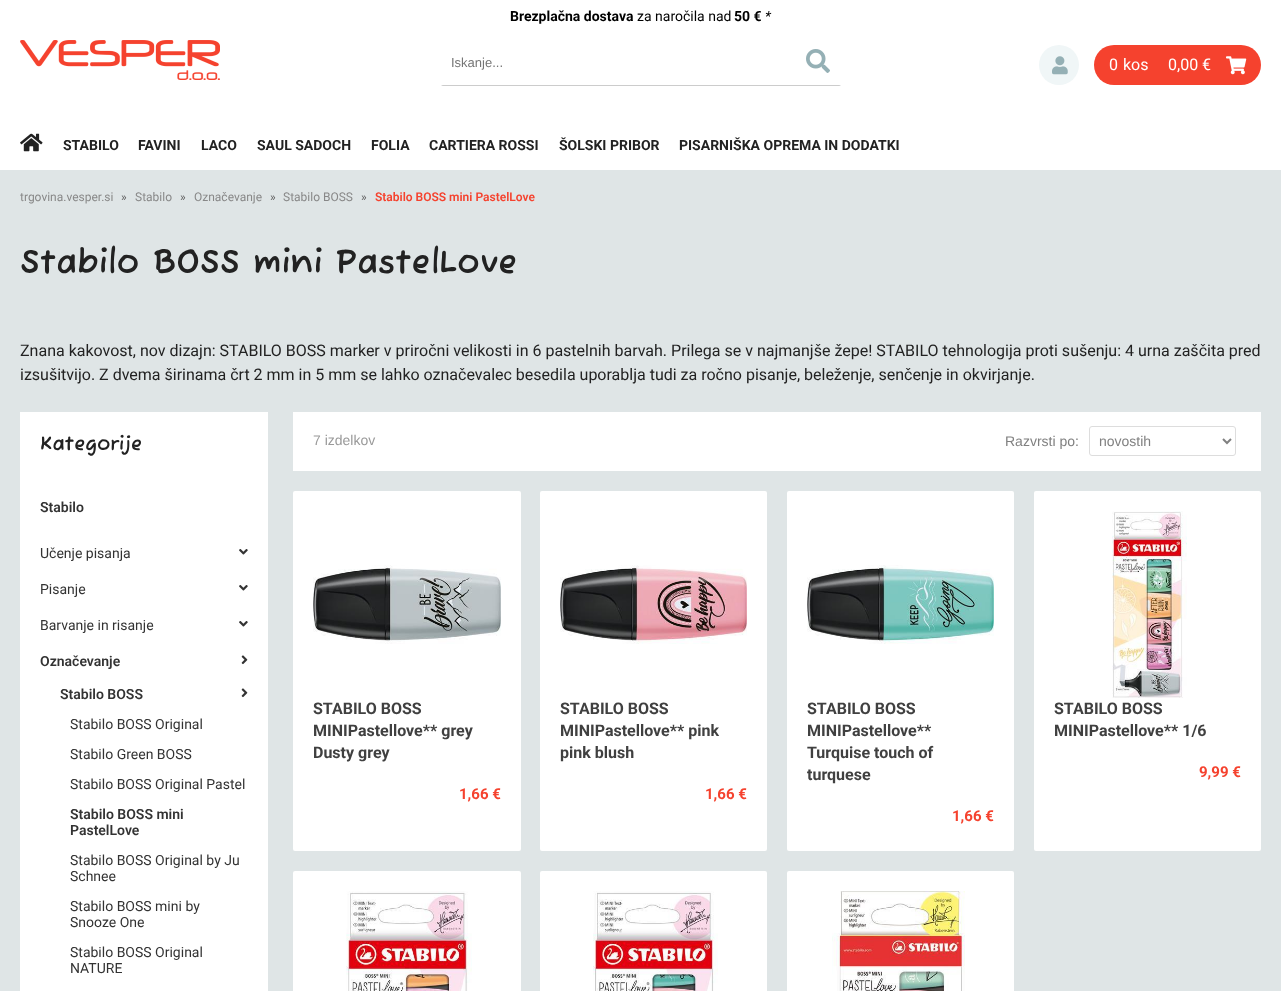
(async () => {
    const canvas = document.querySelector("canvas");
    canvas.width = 1281;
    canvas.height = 991;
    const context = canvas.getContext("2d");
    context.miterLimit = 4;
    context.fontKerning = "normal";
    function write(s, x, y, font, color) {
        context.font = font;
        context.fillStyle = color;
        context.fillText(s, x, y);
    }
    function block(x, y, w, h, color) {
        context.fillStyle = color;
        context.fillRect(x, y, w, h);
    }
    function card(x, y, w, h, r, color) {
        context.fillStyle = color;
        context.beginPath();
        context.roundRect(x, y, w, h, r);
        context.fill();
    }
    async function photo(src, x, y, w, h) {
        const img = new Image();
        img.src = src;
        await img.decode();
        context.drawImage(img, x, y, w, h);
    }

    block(0, 0, 1281, 991, "rgb(223, 229, 230)");
    block(0, 0, 1281, 170, "rgb(255, 255, 255)");
    write("Brezplačna dostava", 510, 21, "bold 14px Roboto", "rgb(0, 0, 0)");
    write("za naročila nad", 637, 21, "14px Roboto", "rgb(0, 0, 0)");
    write("50 €", 734, 21, "bold 14px Roboto", "rgb(0, 0, 0)");
    write("*", 765, 21, "italic 14px Roboto", "rgb(0, 0, 0)");
    await photo("media/1.png", 20, 40, 200, 40);
    context.save();
    context.beginPath();
    context.roundRect(441, 40, 400, 46, 2);
    context.clip();
    block(441, 85, 400, 1, "rgb(204, 204, 204)");
    context.restore();
    write("Iskanje...", 451, 67, "13px Liberation Sans", "rgb(117, 117, 117)");
    await photo("media/2.png", 806, 49, 24, 24);
    context.fillStyle = "rgb(240, 246, 247)";
    context.beginPath();
    context.arc(1059, 65, 20, 0, Math.PI * 2);
    context.fill();
    await photo("media/3.png", 1052, 56, 16, 19);
    card(1094, 45, 167, 40, 20, "rgb(245, 66, 46)");
    write("0", 1109, 70, "16px Roboto", "rgb(255, 255, 255)");
    write("kos", 1123, 70, "16px Roboto", "rgb(255, 255, 255)");
    write("0,00 €", 1168, 70, "16px Roboto", "rgb(255, 255, 255)");
    await photo("media/4.png", 1226, 56, 21, 19);
    await photo("media/5.png", 20, 133, 23, 19);
    write("STABILO", 63, 150, "bold 14px Roboto", "rgb(34, 34, 34)");
    write("FAVINI", 138, 150, "bold 14px Roboto", "rgb(34, 34, 34)");
    write("LACO", 201, 150, "bold 14px Roboto", "rgb(34, 34, 34)");
    write("SAUL SADOCH", 257, 150, "bold 14px Roboto", "rgb(34, 34, 34)");
    write("FOLIA", 371, 150, "bold 14px Roboto", "rgb(34, 34, 34)");
    write("CARTIERA ROSSI", 429, 150, "bold 14px Roboto", "rgb(34, 34, 34)");
    write("ŠOLSKI PRIBOR", 559, 150, "bold 14px Roboto", "rgb(34, 34, 34)");
    write("PISARNIŠKA OPREMA IN DODATKI", 679, 150, "bold 14px Roboto", "rgb(34, 34, 34)");
    write("trgovina.vesper.si", 20, 201, "12px Roboto", "rgb(136, 136, 136)");
    write("»", 121, 201, "12px Roboto", "rgb(96, 96, 96)");
    write("Stabilo", 135, 201, "12px Roboto", "rgb(136, 136, 136)");
    write("»", 180, 201, "12px Roboto", "rgb(96, 96, 96)");
    write("Označevanje", 194, 201, "12px Roboto", "rgb(136, 136, 136)");
    write("»", 270, 201, "12px Roboto", "rgb(96, 96, 96)");
    write("Stabilo BOSS", 283, 201, "12px Roboto", "rgb(136, 136, 136)");
    write("»", 361, 201, "12px Roboto", "rgb(96, 96, 96)");
    write("Stabilo BOSS mini PastelLove", 375, 201, "600 12px Roboto", "rgb(245, 66, 46)");
    write("Stabilo BOSS mini PastelLove", 20, 273, "bold 34px Fuzzy Bubbles", "rgb(34, 34, 34)");
    write("Znana kakovost, nov dizajn: STABILO BOSS marker v priročni velikosti in 6 pastelnih barvah. Prilega se v najmanjše žepe! STABILO tehnologija proti sušenju: 4 urna zaščita pred", 20, 356, "16px Roboto", "rgb(34, 34, 34)");
    write("izsušitvijo. Z dvema širinama črt 2 mm in 5 mm se lahko označevalec besedila uporablja tudi za ročno pisanje, beleženje, senčenje in okvirjanje.", 20, 380, "16px Roboto", "rgb(34, 34, 34)");
    block(20, 412, 248, 579, "rgb(255, 255, 255)");
    write("Kategorije", 40, 450, "bold 20px Fuzzy Bubbles", "rgb(34, 34, 34)");
    write("Stabilo", 40, 512, "600 14px Roboto", "rgb(51, 51, 51)");
    write("Učenje pisanja", 40, 558, "14px Roboto", "rgb(51, 51, 51)");
    await photo("media/6.png", 239, 549, 9, 6);
    write("Pisanje", 40, 594, "14px Roboto", "rgb(51, 51, 51)");
    await photo("media/6.png", 239, 585, 9, 6);
    write("Barvanje in risanje", 40, 630, "14px Roboto", "rgb(51, 51, 51)");
    await photo("media/6.png", 239, 621, 9, 6);
    write("Označevanje", 40, 666, "600 14px Roboto", "rgb(51, 51, 51)");
    await photo("media/7.png", 241, 655, 7, 10);
    write("Stabilo BOSS", 60, 699, "600 14px Roboto", "rgb(51, 51, 51)");
    await photo("media/7.png", 241, 688, 7, 10);
    write("Stabilo BOSS Original", 70, 729, "14px Roboto", "rgb(51, 51, 51)");
    write("Stabilo Green BOSS", 70, 759, "14px Roboto", "rgb(51, 51, 51)");
    write("Stabilo BOSS Original Pastel", 70, 789, "14px Roboto", "rgb(51, 51, 51)");
    write("Stabilo BOSS mini", 70, 819, "600 14px Roboto", "rgb(51, 51, 51)");
    write("PastelLove", 70, 835, "600 14px Roboto", "rgb(51, 51, 51)");
    write("Stabilo BOSS Original by Ju", 70, 865, "14px Roboto", "rgb(51, 51, 51)");
    write("Schnee", 70, 881, "14px Roboto", "rgb(51, 51, 51)");
    write("Stabilo BOSS mini by", 70, 911, "14px Roboto", "rgb(51, 51, 51)");
    write("Snooze One", 70, 927, "14px Roboto", "rgb(51, 51, 51)");
    write("Stabilo BOSS Original", 70, 957, "14px Roboto", "rgb(51, 51, 51)");
    write("NATURE", 70, 973, "14px Roboto", "rgb(51, 51, 51)");
    block(293, 412, 968, 59, "rgb(255, 255, 255)");
    write("7 izdelkov", 313, 445, "14px Liberation Sans", "rgb(154, 154, 154)");
    write("Razvrsti po:", 1005, 446, "14px Liberation Sans", "rgb(128, 128, 128)");
    context.beginPath();
    context.roundRect(1089.5, 426.5, 146, 29, 2.5);
    context.strokeStyle = "rgb(221, 221, 221)";
    context.stroke();
    context.beginPath();
    context.moveTo(1223, 439);
    context.lineTo(1227, 443);
    context.lineTo(1231, 439);
    context.strokeStyle = "rgb(128, 128, 128)";
    context.lineWidth = 2;
    context.stroke();
    write("novostih", 1099, 446, "14px Liberation Sans", "rgb(128, 128, 128)");
    card(293, 491, 228, 360, 2, "rgb(255, 255, 255)");
    await photo("media/8.png", 313, 565, 188, 79);
    write("STABILO BOSS", 313, 714, "bold 16px Roboto", "rgb(64, 64, 64)");
    write("MINIPastellove** grey", 313, 736, "bold 16px Roboto", "rgb(64, 64, 64)");
    write("Dusty grey", 313, 758, "bold 16px Roboto", "rgb(64, 64, 64)");
    write("1,66 €", 459, 799, "bold 15px Roboto", "rgb(245, 66, 46)");
    card(540, 491, 227, 360, 2, "rgb(255, 255, 255)");
    await photo("media/9.png", 560, 565, 187, 79);
    write("STABILO BOSS", 560, 714, "bold 16px Roboto", "rgb(64, 64, 64)");
    write("MINIPastellove** pink", 560, 736, "bold 16px Roboto", "rgb(64, 64, 64)");
    write("pink blush", 560, 758, "bold 16px Roboto", "rgb(64, 64, 64)");
    write("1,66 €", 705, 799, "bold 15px Roboto", "rgb(245, 66, 46)");
    card(787, 491, 227, 360, 2, "rgb(255, 255, 255)");
    await photo("media/10.png", 807, 565, 187, 79);
    write("STABILO BOSS", 807, 714, "bold 16px Roboto", "rgb(64, 64, 64)");
    write("MINIPastellove**", 807, 736, "bold 16px Roboto", "rgb(64, 64, 64)");
    write("Turquise touch of", 807, 758, "bold 16px Roboto", "rgb(64, 64, 64)");
    write("turquese", 807, 780, "bold 16px Roboto", "rgb(64, 64, 64)");
    write("1,66 €", 952, 821, "bold 15px Roboto", "rgb(245, 66, 46)");
    card(1034, 491, 227, 360, 2, "rgb(255, 255, 255)");
    await photo("media/11.png", 1112, 511, 75, 187);
    write("STABILO BOSS", 1054, 714, "bold 16px Roboto", "rgb(64, 64, 64)");
    write("MINIPastellove** 1/6", 1054, 736, "bold 16px Roboto", "rgb(64, 64, 64)");
    write("9,99 €", 1199, 777, "bold 15px Roboto", "rgb(245, 66, 46)");
    card(293, 871, 228, 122, 2, "rgb(255, 255, 255)");
    await photo("media/12.png", 346, 891, 126, 100);
    card(540, 871, 227, 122, 2, "rgb(255, 255, 255)");
    await photo("media/13.png", 593, 891, 125, 100);
    card(787, 871, 227, 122, 2, "rgb(255, 255, 255)");
    await photo("media/14.png", 832, 891, 133, 100);
})();
